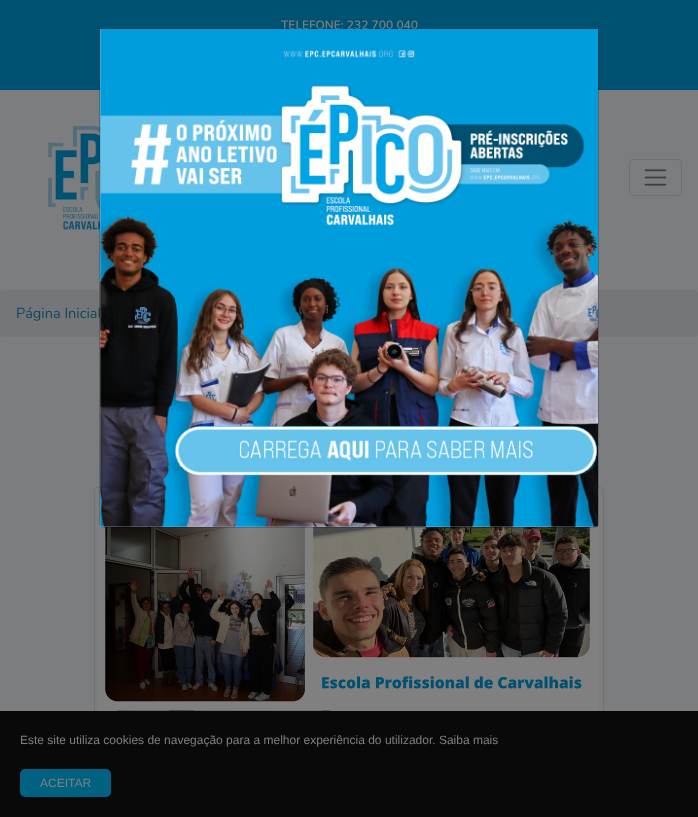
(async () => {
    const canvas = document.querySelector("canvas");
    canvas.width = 698;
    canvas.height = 817;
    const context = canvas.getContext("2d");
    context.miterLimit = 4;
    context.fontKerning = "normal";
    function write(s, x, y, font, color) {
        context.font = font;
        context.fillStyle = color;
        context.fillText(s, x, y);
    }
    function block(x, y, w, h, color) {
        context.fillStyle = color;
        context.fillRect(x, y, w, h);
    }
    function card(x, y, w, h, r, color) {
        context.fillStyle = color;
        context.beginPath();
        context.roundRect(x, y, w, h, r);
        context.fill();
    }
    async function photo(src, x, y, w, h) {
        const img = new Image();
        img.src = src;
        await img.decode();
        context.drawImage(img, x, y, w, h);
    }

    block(0, 0, 698, 817, "rgb(124, 125, 126)");
    block(0, 0, 698, 90, "rgb(0, 82, 114)");
    write("TELEFONE: 232 700 040", 281, 29, "600 12px Nunito", "rgb(128, 128, 128)");
    await photo("media/3.png", 48, 126, 52, 104);
    card(0, 290, 698, 47, 4, "rgb(117, 118, 120)");
    write("Página Inicial", 16, 318, "200 14.5px Nunito", "rgb(12, 72, 95)");
    context.beginPath();
    context.roundRect(94.5, 487.5, 509, 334, 3.5);
    context.strokeStyle = "rgb(111, 113, 115)";
    context.stroke();
    await photo("media/5.png", 99, 492, 500, 219);
    context.beginPath();
    context.roundRect(99.5, 28.5, 499, 499, 4.5);
    context.strokeStyle = "rgba(0, 0, 0, 0.2)";
    context.stroke();
    await photo("media/1.png", 100, 29, 498, 498);
    await photo("media/2.png", 174, 425, 424, 52);
    context.beginPath();
    context.roundRect(629.5, 159.5, 52, 36, 3.5);
    context.strokeStyle = "rgb(112, 112, 113)";
    context.stroke();
    await photo("media/4.png", 644, 169, 23, 17);
    block(0, 711, 698, 106, "rgb(9, 9, 9)");
    write("Este site utiliza cookies de navegação para a melhor experiência do utilizador. Saiba mais", 20, 744, "12px Liberation Sans", "rgb(128, 128, 128)");
    card(20, 769, 91, 28, 5, "rgb(0, 97, 128)");
    write("ACEITAR", 40, 787, "12px Liberation Sans", "rgb(128, 128, 128)");
})();
